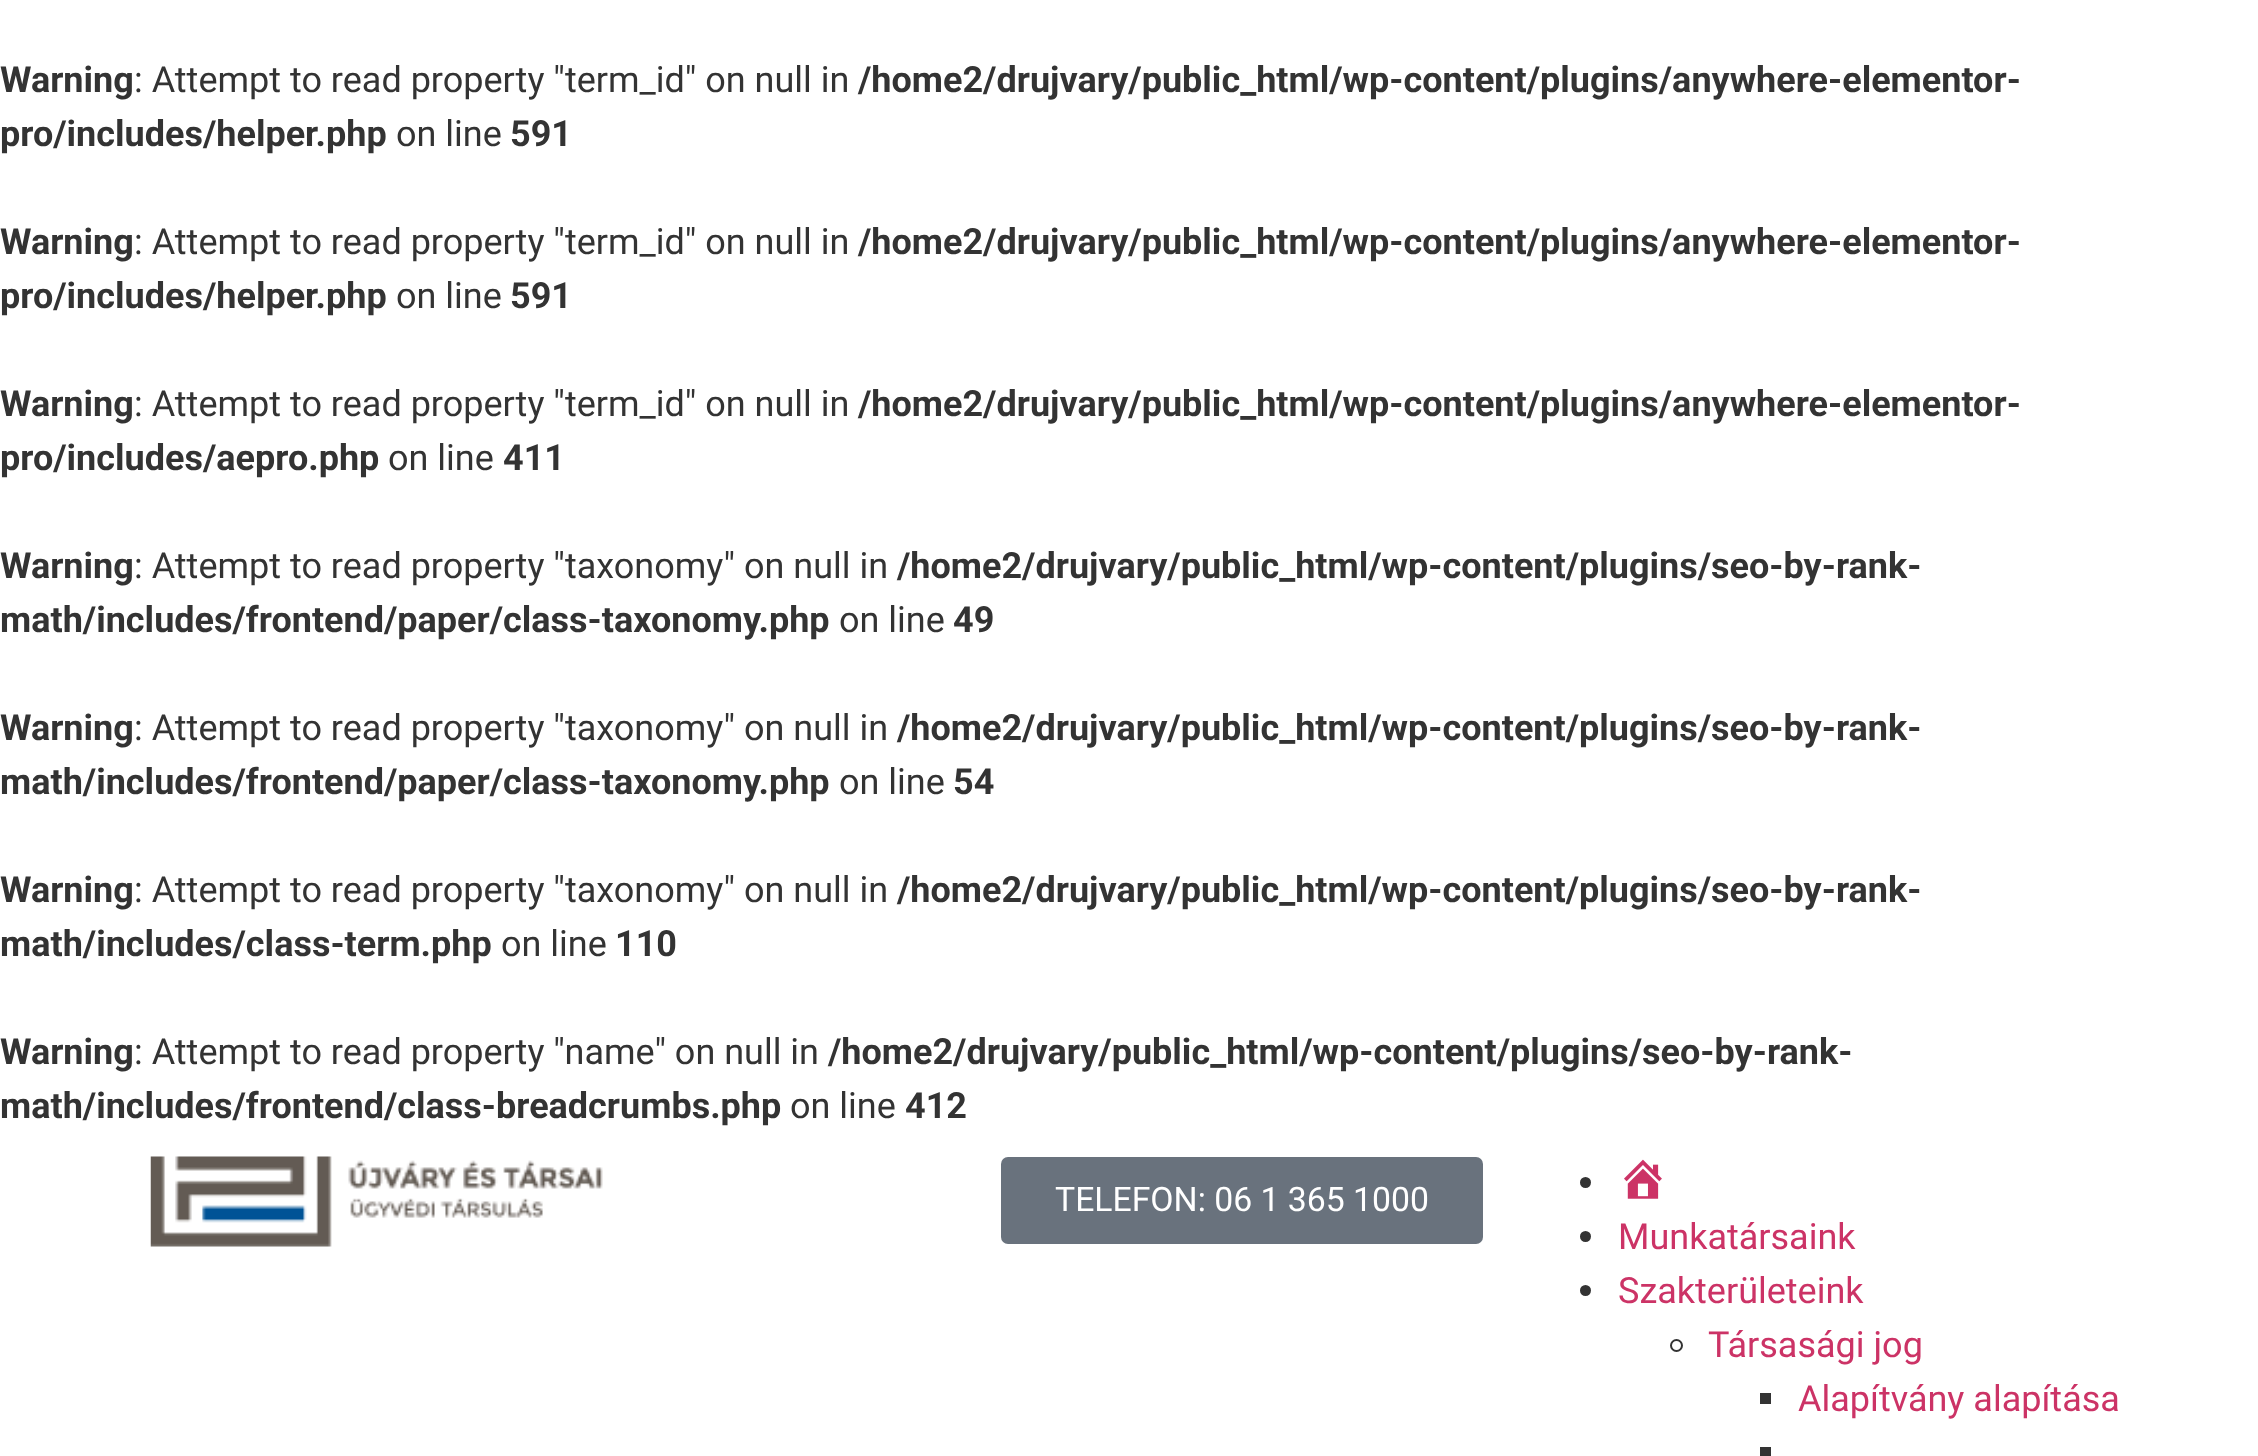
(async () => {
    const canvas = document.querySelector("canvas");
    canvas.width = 2258;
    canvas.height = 1456;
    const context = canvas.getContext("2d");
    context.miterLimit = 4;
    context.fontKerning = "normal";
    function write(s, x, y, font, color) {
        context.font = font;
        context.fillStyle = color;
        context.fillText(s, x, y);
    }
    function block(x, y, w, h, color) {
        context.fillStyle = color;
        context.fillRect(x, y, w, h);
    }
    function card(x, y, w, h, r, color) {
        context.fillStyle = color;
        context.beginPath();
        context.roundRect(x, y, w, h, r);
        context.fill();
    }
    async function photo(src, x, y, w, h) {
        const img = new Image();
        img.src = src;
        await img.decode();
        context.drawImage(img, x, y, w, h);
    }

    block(0, 0, 2258, 1456, "rgb(255, 255, 255)");
    write("Warning", 0, 92, "bold 36px Roboto", "rgb(51, 51, 51)");
    write(": Attempt to read property \"term_id\" on null in", 134, 92, "36px Roboto", "rgb(51, 51, 51)");
    write("/home2/drujvary/public_html/wp-content/plugins/anywhere-elementor-", 858, 92, "bold 36px Roboto", "rgb(51, 51, 51)");
    write("pro/includes/helper.php", 0, 146, "bold 36px Roboto", "rgb(51, 51, 51)");
    write("on line", 396, 146, "36px Roboto", "rgb(51, 51, 51)");
    write("591", 510, 146, "bold 36px Roboto", "rgb(51, 51, 51)");
    write("Warning", 0, 254, "bold 36px Roboto", "rgb(51, 51, 51)");
    write(": Attempt to read property \"term_id\" on null in", 134, 254, "36px Roboto", "rgb(51, 51, 51)");
    write("/home2/drujvary/public_html/wp-content/plugins/anywhere-elementor-", 858, 254, "bold 36px Roboto", "rgb(51, 51, 51)");
    write("pro/includes/helper.php", 0, 308, "bold 36px Roboto", "rgb(51, 51, 51)");
    write("on line", 396, 308, "36px Roboto", "rgb(51, 51, 51)");
    write("591", 510, 308, "bold 36px Roboto", "rgb(51, 51, 51)");
    write("Warning", 0, 416, "bold 36px Roboto", "rgb(51, 51, 51)");
    write(": Attempt to read property \"term_id\" on null in", 134, 416, "36px Roboto", "rgb(51, 51, 51)");
    write("/home2/drujvary/public_html/wp-content/plugins/anywhere-elementor-", 858, 416, "bold 36px Roboto", "rgb(51, 51, 51)");
    write("pro/includes/aepro.php", 0, 470, "bold 36px Roboto", "rgb(51, 51, 51)");
    write("on line", 388, 470, "36px Roboto", "rgb(51, 51, 51)");
    write("411", 503, 470, "bold 36px Roboto", "rgb(51, 51, 51)");
    write("Warning", 0, 578, "bold 36px Roboto", "rgb(51, 51, 51)");
    write(": Attempt to read property \"taxonomy\" on null in", 134, 578, "36px Roboto", "rgb(51, 51, 51)");
    write("/home2/drujvary/public_html/wp-content/plugins/seo-by-rank-", 897, 578, "bold 36px Roboto", "rgb(51, 51, 51)");
    write("math/includes/frontend/paper/class-taxonomy.php", 0, 632, "bold 36px Roboto", "rgb(51, 51, 51)");
    write("on line", 839, 632, "36px Roboto", "rgb(51, 51, 51)");
    write("49", 953, 632, "bold 36px Roboto", "rgb(51, 51, 51)");
    write("Warning", 0, 740, "bold 36px Roboto", "rgb(51, 51, 51)");
    write(": Attempt to read property \"taxonomy\" on null in", 134, 740, "36px Roboto", "rgb(51, 51, 51)");
    write("/home2/drujvary/public_html/wp-content/plugins/seo-by-rank-", 897, 740, "bold 36px Roboto", "rgb(51, 51, 51)");
    write("math/includes/frontend/paper/class-taxonomy.php", 0, 794, "bold 36px Roboto", "rgb(51, 51, 51)");
    write("on line", 839, 794, "36px Roboto", "rgb(51, 51, 51)");
    write("54", 953, 794, "bold 36px Roboto", "rgb(51, 51, 51)");
    write("Warning", 0, 902, "bold 36px Roboto", "rgb(51, 51, 51)");
    write(": Attempt to read property \"taxonomy\" on null in", 134, 902, "36px Roboto", "rgb(51, 51, 51)");
    write("/home2/drujvary/public_html/wp-content/plugins/seo-by-rank-", 897, 902, "bold 36px Roboto", "rgb(51, 51, 51)");
    write("math/includes/class-term.php", 0, 956, "bold 36px Roboto", "rgb(51, 51, 51)");
    write("on line", 501, 956, "36px Roboto", "rgb(51, 51, 51)");
    write("110", 615, 956, "bold 36px Roboto", "rgb(51, 51, 51)");
    write("Warning", 0, 1064, "bold 36px Roboto", "rgb(51, 51, 51)");
    write(": Attempt to read property \"name\" on null in", 134, 1064, "36px Roboto", "rgb(51, 51, 51)");
    write("/home2/drujvary/public_html/wp-content/plugins/seo-by-rank-", 828, 1064, "bold 36px Roboto", "rgb(51, 51, 51)");
    write("math/includes/frontend/class-breadcrumbs.php", 0, 1118, "bold 36px Roboto", "rgb(51, 51, 51)");
    write("on line", 790, 1118, "36px Roboto", "rgb(51, 51, 51)");
    write("412", 905, 1118, "bold 36px Roboto", "rgb(51, 51, 51)");
    await photo("media/1.png", 150, 1156, 453, 91);
    card(1001, 1157, 482, 87, 7, "rgb(105, 114, 125)");
    write("TELEFON: 06 1 365 1000", 1055, 1211, "33.75px Roboto", "rgb(255, 255, 255)");
    context.fillStyle = "rgb(51, 51, 51)";
    context.beginPath();
    context.arc(1585.5, 1182.5, 5.5, 0, Math.PI * 2);
    context.fill();
    await photo("media/2.png", 1624, 1159, 38, 40);
    context.beginPath();
    context.arc(1585.5, 1236.5, 5.5, 0, Math.PI * 2);
    context.fill();
    write("Munkatársaink", 1618, 1249, "36px Roboto", "rgb(204, 51, 102)");
    context.fillStyle = "rgb(51, 51, 51)";
    context.beginPath();
    context.arc(1585.5, 1290.5, 5.5, 0, Math.PI * 2);
    context.fill();
    write("Szakterületeink", 1618, 1303, "36px Roboto", "rgb(204, 51, 102)");
    context.beginPath();
    context.arc(1676.5, 1345.5, 5.5, 0, Math.PI * 2);
    context.strokeStyle = "rgb(51, 51, 51)";
    context.lineWidth = 2;
    context.stroke();
    write("Társasági jog", 1708, 1357, "36px Roboto", "rgb(204, 51, 102)");
    block(1760, 1393, 11, 11, "rgb(51, 51, 51)");
    write("Alapítvány alapítása", 1798, 1411, "36px Roboto", "rgb(204, 51, 102)");
    block(1760, 1447, 11, 9, "rgb(51, 51, 51)");
})();
